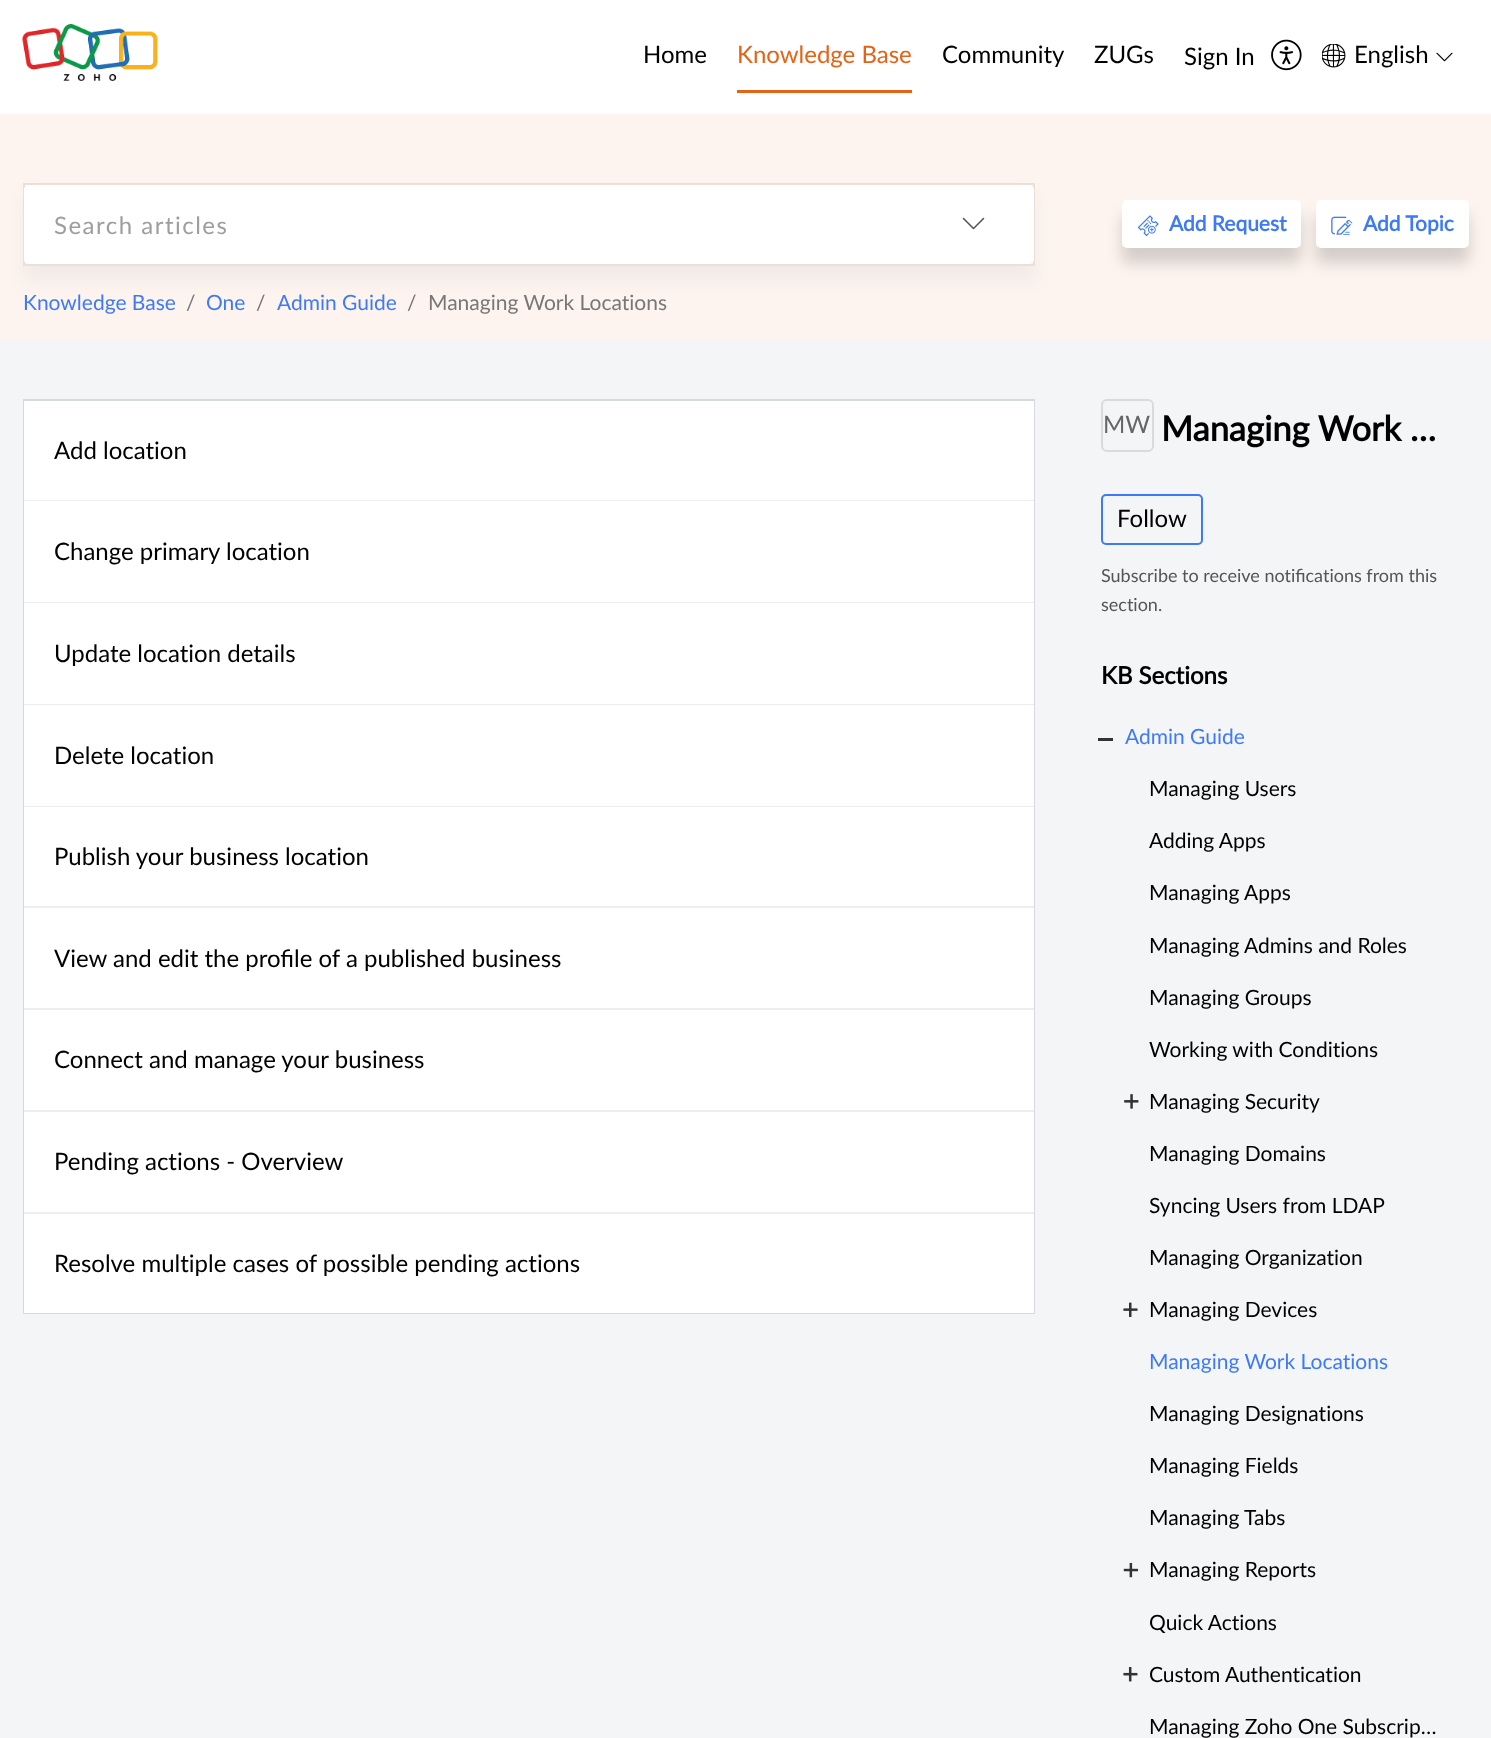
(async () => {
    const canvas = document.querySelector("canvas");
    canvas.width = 1491;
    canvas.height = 1738;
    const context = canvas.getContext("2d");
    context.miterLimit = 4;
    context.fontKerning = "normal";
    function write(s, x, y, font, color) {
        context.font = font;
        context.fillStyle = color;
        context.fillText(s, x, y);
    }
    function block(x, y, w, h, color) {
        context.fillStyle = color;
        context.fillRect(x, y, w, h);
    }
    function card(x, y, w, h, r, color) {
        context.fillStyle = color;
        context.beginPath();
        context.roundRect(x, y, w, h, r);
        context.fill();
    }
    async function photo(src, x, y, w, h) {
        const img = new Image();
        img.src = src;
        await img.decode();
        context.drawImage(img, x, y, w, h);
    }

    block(0, 0, 1491, 1738, "rgb(243, 245, 247)");
    block(0, 0, 1491, 114, "rgb(255, 255, 255)");
    await photo("media/1.png", 22, 24, 136, 57);
    write("Home", 643, 63, "24px Lato", "rgb(0, 0, 0)");
    block(737, 90, 175, 3, "rgb(228, 99, 23)");
    write("Knowledge Base", 737, 63, "24px Lato", "rgb(228, 99, 23)");
    write("Community", 942, 63, "24px Lato", "rgb(0, 0, 0)");
    write("ZUGs", 1094, 63, "24px Lato", "rgb(0, 0, 0)");
    write("Sign In", 1184, 65, "24px Lato", "rgb(0, 0, 0)");
    await photo("media/2.png", 1271, 39, 31, 32);
    await photo("media/3.png", 1322, 44, 24, 24);
    write("English", 1354, 63, "24px Lato", "rgb(0, 0, 0)");
    await photo("media/4.png", 1436, 52, 17, 10);
    block(0, 114, 1491, 225, "rgb(253, 244, 239)");
    context.fillStyle = "rgba(240, 232, 229, 0.84)";
    context.filter = "blur(7.5px)";
    context.beginPath();
    context.rect(23, 198, 1012, 83);
    context.fill();
    context.filter = "none";
    context.strokeStyle = "rgb(234, 223, 219)";
    context.lineWidth = 2;
    context.strokeRect(24, 184, 1010, 81);
    card(24, 185, 1010, 79, 5, "rgb(255, 255, 255)");
    card(24, 185, 890, 79, 5, "rgb(255, 255, 255)");
    context.letterSpacing = "1.5px";
    write("Search articles", 54, 234, "24px Lato", "rgb(158, 158, 158)");
    context.fillStyle = "rgba(255, 255, 255, 0.5)";
    context.beginPath();
    context.roundRect(914, 185, 120, 79, [0, 5, 5, 0]);
    context.fill();
    await photo("media/5.png", 962, 217, 23, 13);
    context.fillStyle = "rgba(0, 0, 0, 0.16)";
    context.filter = "blur(7.5px)";
    context.beginPath();
    context.roundRect(1122, 215, 179, 48, 5);
    context.fill();
    context.filter = "none";
    card(1122, 200, 179, 48, 5, "rgb(255, 255, 255)");
    await photo("media/6.png", 1137, 215, 22, 22);
    context.letterSpacing = "0px";
    write("Add Request", 1169, 231, "bold 21px Lato", "rgb(62, 122, 247)");
    context.fillStyle = "rgba(0, 0, 0, 0.16)";
    context.filter = "blur(7.5px)";
    context.beginPath();
    context.roundRect(1316, 215, 153, 48, 5);
    context.fill();
    context.filter = "none";
    card(1316, 200, 153, 48, 5, "rgb(255, 255, 255)");
    await photo("media/7.png", 1331, 216, 22, 19);
    write("Add Topic", 1363, 231, "bold 21px Lato", "rgb(62, 122, 247)");
    write("Knowledge Base", 23, 310, "21px Lato", "rgb(62, 122, 247)");
    write("/", 186, 310, "21px Lato", "rgb(119, 119, 119)");
    write("One", 206, 310, "21px Lato", "rgb(62, 122, 247)");
    write("/", 256, 310, "21px Lato", "rgb(119, 119, 119)");
    write("Admin Guide", 277, 310, "21px Lato", "rgb(62, 122, 247)");
    write("/", 407, 310, "21px Lato", "rgb(119, 119, 119)");
    write("Managing Work Locations", 428, 310, "21px Lato", "rgb(119, 119, 119)");
    context.strokeStyle = "rgb(212, 218, 223)";
    context.strokeRect(24, 400, 1010, 913);
    block(24, 401, 1010, 505, "rgb(255, 255, 255)");
    block(24, 500, 1010, 1, "rgba(0, 0, 0, 0.07)");
    write("Add location", 54, 459, "24px Lato", "rgb(0, 0, 0)");
    block(24, 602, 1010, 1, "rgba(0, 0, 0, 0.07)");
    write("Change primary location", 54, 560, "24px Lato", "rgb(0, 0, 0)");
    block(24, 704, 1010, 1, "rgba(0, 0, 0, 0.07)");
    write("Update location details", 54, 662, "24px Lato", "rgb(0, 0, 0)");
    block(24, 806, 1010, 1, "rgba(0, 0, 0, 0.07)");
    write("Delete location", 54, 764, "24px Lato", "rgb(0, 0, 0)");
    block(24, 906, 1010, 2, "rgb(237, 237, 237)");
    write("Publish your business location", 54, 865, "24px Lato", "rgb(0, 0, 0)");
    block(24, 908, 1010, 100, "rgb(255, 255, 255)");
    block(24, 1008, 1010, 2, "rgb(237, 237, 237)");
    write("View and edit the profile of a published business", 54, 967, "24px Lato", "rgb(0, 0, 0)");
    block(24, 1010, 1010, 100, "rgb(255, 255, 255)");
    block(24, 1110, 1010, 2, "rgb(237, 237, 237)");
    write("Connect and manage your business", 54, 1068, "24px Lato", "rgb(0, 0, 0)");
    block(24, 1112, 1010, 100, "rgb(255, 255, 255)");
    block(24, 1212, 1010, 2, "rgb(237, 237, 237)");
    write("Pending actions - Overview", 54, 1170, "24px Lato", "rgb(0, 0, 0)");
    block(24, 1214, 1010, 99, "rgb(255, 255, 255)");
    write("Resolve multiple cases of possible pending actions", 54, 1272, "24px Lato", "rgb(0, 0, 0)");
    context.beginPath();
    context.roundRect(1102, 400, 51, 51, 5);
    context.strokeStyle = "rgb(218, 218, 218)";
    context.stroke();
    write("MW", 1103, 433, "24px Lato", "rgb(102, 102, 102)");
    write("Managing Work …", 1161, 441, "bold 34.5px Lato", "rgb(0, 0, 0)");
    context.beginPath();
    context.roundRect(1102, 495, 100, 49, 4);
    context.strokeStyle = "rgb(62, 122, 247)";
    context.stroke();
    write("Follow", 1117, 527, "24px Lato", "rgb(0, 0, 0)");
    write("Subscribe to receive notifications from this", 1101, 582, "18px Lato", "rgb(85, 85, 85)");
    write("section.", 1101, 611, "18px Lato", "rgb(85, 85, 85)");
    write("KB Sections", 1101, 684, "bold 24px Lato", "rgb(0, 0, 0)");
    block(1098, 738, 15, 3, "rgb(51, 51, 51)");
    write("Admin Guide", 1125, 744, "21px Lato", "rgb(62, 122, 247)");
    write("Managing Users", 1149, 796, "21px Lato", "rgb(0, 0, 0)");
    write("Adding Apps", 1149, 848, "21px Lato", "rgb(0, 0, 0)");
    write("Managing Apps", 1149, 900, "21px Lato", "rgb(0, 0, 0)");
    write("Managing Admins and Roles", 1149, 953, "21px Lato", "rgb(0, 0, 0)");
    write("Managing Groups", 1149, 1005, "21px Lato", "rgb(0, 0, 0)");
    write("Working with Conditions", 1149, 1057, "21px Lato", "rgb(0, 0, 0)");
    await photo("media/8.png", 1124, 1094, 15, 15);
    write("Managing Security", 1149, 1109, "21px Lato", "rgb(0, 0, 0)");
    write("Managing Domains", 1149, 1161, "21px Lato", "rgb(0, 0, 0)");
    write("Syncing Users from LDAP", 1149, 1213, "21px Lato", "rgb(0, 0, 0)");
    write("Managing Organization", 1149, 1265, "21px Lato", "rgb(0, 0, 0)");
    await photo("media/9.png", 1123, 1302, 15, 15);
    write("Managing Devices", 1149, 1317, "21px Lato", "rgb(0, 0, 0)");
    write("Managing Work Locations", 1149, 1369, "21px Lato", "rgb(62, 122, 247)");
    write("Managing Designations", 1149, 1421, "21px Lato", "rgb(0, 0, 0)");
    write("Managing Fields", 1149, 1473, "21px Lato", "rgb(0, 0, 0)");
    write("Managing Tabs", 1149, 1525, "21px Lato", "rgb(0, 0, 0)");
    await photo("media/10.png", 1123, 1562, 16, 16);
    write("Managing Reports", 1149, 1577, "21px Lato", "rgb(0, 0, 0)");
    write("Quick Actions", 1149, 1630, "21px Lato", "rgb(0, 0, 0)");
    await photo("media/11.png", 1123, 1667, 15, 15);
    write("Custom Authentication", 1149, 1682, "21px Lato", "rgb(0, 0, 0)");
    write("Managing Zoho One Subscrip…", 1149, 1734, "21px Lato", "rgb(0, 0, 0)");
})();
